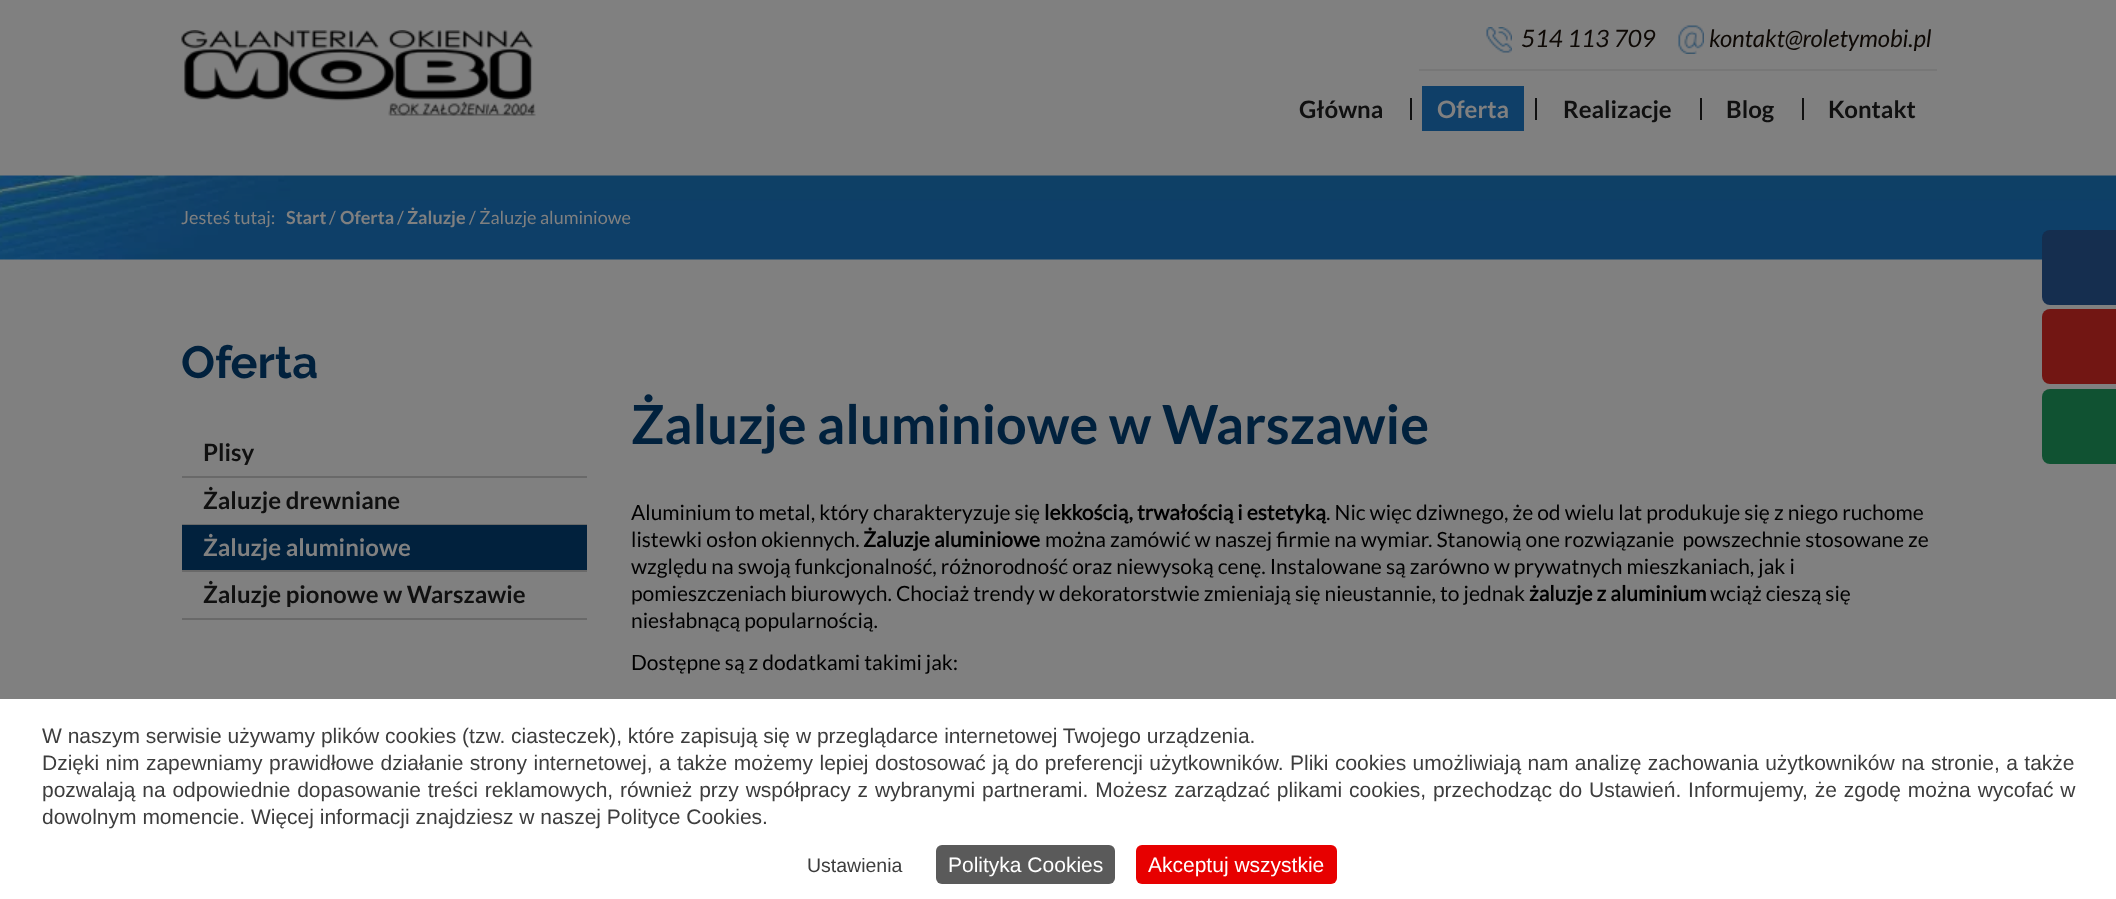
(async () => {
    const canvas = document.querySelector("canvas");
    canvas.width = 2116;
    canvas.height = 899;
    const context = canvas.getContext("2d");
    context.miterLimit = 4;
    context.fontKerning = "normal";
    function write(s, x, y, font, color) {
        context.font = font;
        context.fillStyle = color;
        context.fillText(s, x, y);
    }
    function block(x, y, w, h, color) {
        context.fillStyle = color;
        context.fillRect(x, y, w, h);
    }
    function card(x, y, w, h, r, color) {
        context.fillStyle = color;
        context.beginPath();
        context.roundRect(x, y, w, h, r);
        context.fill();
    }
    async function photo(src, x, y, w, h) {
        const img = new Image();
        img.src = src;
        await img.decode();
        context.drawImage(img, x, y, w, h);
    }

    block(0, 0, 2116, 899, "rgb(128, 128, 128)");
    await photo("media/1.png", 181, 30, 355, 86);
    await photo("media/2.png", 1486, 27, 26, 26);
    write("514 113 709", 1521, 47, "italic 24px Lato", "rgb(14, 9, 5)");
    await photo("media/3.png", 1678, 25, 26, 29);
    write("kontakt@roletymobi.pl", 1709, 47, "italic 24px Lato", "rgb(14, 9, 5)");
    block(1419, 69, 518, 2, "rgb(119, 119, 119)");
    write("Główna", 1299, 118, "bold 24px Lato", "rgb(16, 16, 16)");
    block(1410, 98, 2, 22, "rgb(16, 16, 16)");
    block(1422, 86, 102, 45, "rgb(15, 63, 104)");
    write("Oferta", 1437, 118, "bold 24px Lato", "rgb(128, 128, 128)");
    block(1535, 98, 2, 22, "rgb(16, 16, 16)");
    write("Realizacje", 1563, 118, "bold 24px Lato", "rgb(16, 16, 16)");
    block(1700, 98, 2, 22, "rgb(16, 16, 16)");
    write("Blog", 1726, 118, "bold 24px Lato", "rgb(16, 16, 16)");
    block(1802, 98, 2, 22, "rgb(16, 16, 16)");
    write("Kontakt", 1828, 118, "bold 24px Lato", "rgb(16, 16, 16)");
    await photo("media/4.png", 0, 175, 2116, 85);
    write("Jesteś tutaj:", 181, 224, "18px Lato", "rgb(128, 128, 128)");
    write("Start", 286, 224, "bold 18px Lato", "rgb(128, 128, 128)");
    write("/", 329, 224, "18px Lato", "rgb(128, 128, 128)");
    write("Oferta", 340, 224, "bold 18px Lato", "rgb(128, 128, 128)");
    write("/", 397, 224, "18px Lato", "rgb(128, 128, 128)");
    write("Żaluzje", 407, 224, "bold 18px Lato", "rgb(128, 128, 128)");
    write("/ Żaluzje aluminiowe", 469, 224, "18px Lato", "rgb(128, 128, 128)");
    write("Oferta", 181, 378, "bold 45px Raleway", "rgb(1, 33, 61)");
    block(182, 476, 405, 2, "rgb(105, 105, 105)");
    write("Plisy", 203, 461, "bold 24px Lato", "rgb(16, 16, 16)");
    block(182, 524, 405, 1, "rgb(105, 105, 105)");
    write("Żaluzje drewniane", 203, 509, "bold 24px Lato", "rgb(16, 16, 16)");
    block(182, 525, 405, 45, "rgb(1, 33, 61)");
    block(182, 570, 405, 2, "rgb(105, 105, 105)");
    write("Żaluzje aluminiowe", 203, 556, "bold 24px Lato", "rgb(128, 128, 128)");
    block(182, 618, 405, 2, "rgb(105, 105, 105)");
    write("Żaluzje pionowe w Warszawie", 203, 603, "bold 24px Lato", "rgb(16, 16, 16)");
    write("Żaluzje aluminiowe w Warszawie", 631, 444, "bold 54px Lato", "rgb(1, 33, 61)");
    write("Aluminium to metal, który charakteryzuje się", 631, 520, "21px Lato", "rgb(0, 0, 0)");
    write("lekkością, trwałością i estetyką", 1044, 520, "bold 21px 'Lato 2'", "rgb(0, 0, 0)");
    write(". Nic więc dziwnego, że od wielu lat produkuje się z niego ruchome", 1326, 520, "21px Lato", "rgb(0, 0, 0)");
    write("listewki osłon okiennych.", 631, 547, "21px Lato", "rgb(0, 0, 0)");
    write("Żaluzje aluminiowe", 863, 547, "bold 21px 'Lato 2'", "rgb(0, 0, 0)");
    write("można zamówić w naszej firmie na wymiar. Stanowią one rozwiązanie  powszechnie stosowane ze", 1045, 547, "21px Lato", "rgb(0, 0, 0)");
    write("względu na swoją funkcjonalność, różnorodność oraz niewysoką cenę. Instalowane są zarówno w prywatnych mieszkaniach, jak i", 631, 574, "21px Lato", "rgb(0, 0, 0)");
    write("pomieszczeniach biurowych. Chociaż trendy w dekoratorstwie zmieniają się nieustannie, to jednak", 631, 601, "21px Lato", "rgb(0, 0, 0)");
    write("żaluzje z aluminium", 1529, 601, "bold 21px 'Lato 2'", "rgb(0, 0, 0)");
    write("wciąż cieszą się", 1710, 601, "21px Lato", "rgb(0, 0, 0)");
    write("niesłabnącą popularnością.", 631, 628, "21px Lato", "rgb(0, 0, 0)");
    write("Dostępne są z dodatkami takimi jak:", 631, 670, "21px Lato", "rgb(0, 0, 0)");
    card(2042, 230, 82, 75, 8, "rgb(21, 46, 79)");
    card(2042, 309, 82, 75, 8, "rgb(114, 22, 19)");
    card(2042, 389, 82, 75, 8, "rgb(16, 82, 50)");
    block(0, 699, 2116, 200, "rgb(255, 255, 255)");
    write("W naszym serwisie używamy plików cookies (tzw. ciasteczek), które zapisują się w przeglądarce internetowej Twojego urządzenia.", 42, 743, "21px Liberation Sans", "rgb(61, 61, 61)");
    context.wordSpacing = "0.6px";
    write("Dzięki nim zapewniamy prawidłowe działanie strony internetowej, a także możemy lepiej dostosować ją do preferencji użytkowników. Pliki cookies umożliwiają nam analizę zachowania użytkowników na stronie, a także", 42, 770, "21px Liberation Sans", "rgb(61, 61, 61)");
    context.wordSpacing = "1px";
    write("pozwalają na odpowiednie dopasowanie treści reklamowych, również przy współpracy z wybranymi partnerami. Możesz zarządzać plikami cookies, przechodząc do Ustawień. Informujemy, że zgodę można wycofać w", 42, 797, "21px Liberation Sans", "rgb(61, 61, 61)");
    context.wordSpacing = "0px";
    write("dowolnym momencie. Więcej informacji znajdziesz w naszej Polityce Cookies.", 42, 824, "21px Liberation Sans", "rgb(61, 61, 61)");
    write("Ustawienia", 807, 872, "19.5px Liberation Sans", "rgb(61, 61, 61)");
    card(936, 845, 179, 39, 6, "rgb(90, 90, 90)");
    write("Polityka Cookies", 948, 872, "21px Liberation Sans", "rgb(255, 255, 255)");
    card(1136, 845, 201, 39, 6, "rgb(231, 0, 0)");
    write("Akceptuj wszystkie", 1148, 872, "21px Liberation Sans", "rgb(255, 255, 255)");
})();
